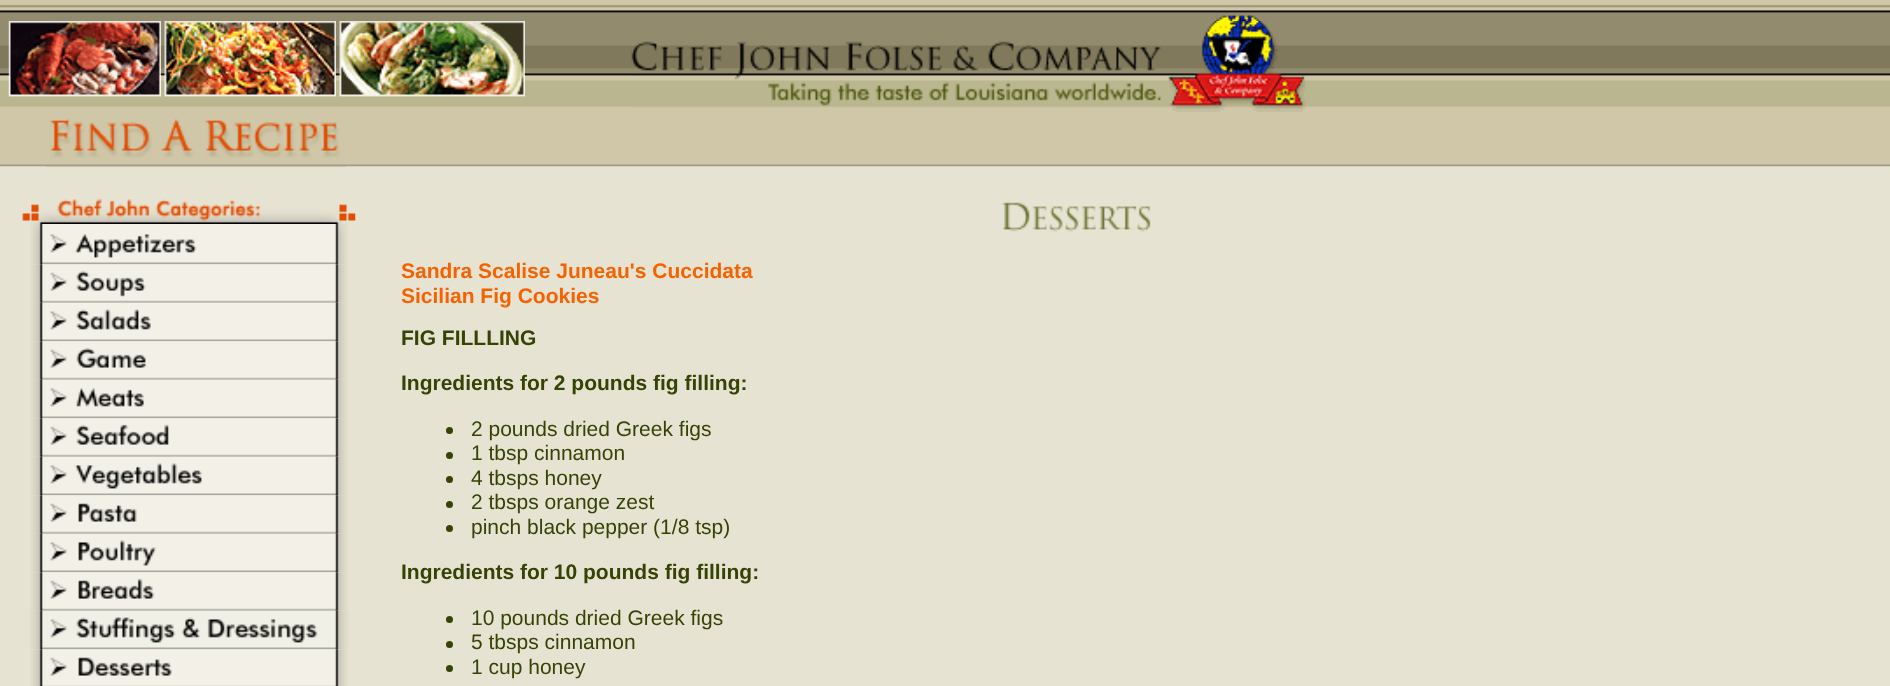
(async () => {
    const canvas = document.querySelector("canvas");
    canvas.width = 1890;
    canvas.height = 686;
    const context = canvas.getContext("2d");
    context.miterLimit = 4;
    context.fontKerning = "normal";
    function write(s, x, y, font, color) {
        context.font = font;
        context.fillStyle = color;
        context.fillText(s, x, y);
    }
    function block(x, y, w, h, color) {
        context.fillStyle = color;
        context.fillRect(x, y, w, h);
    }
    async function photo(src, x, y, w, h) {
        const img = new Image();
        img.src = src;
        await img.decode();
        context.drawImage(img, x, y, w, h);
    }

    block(0, 0, 1890, 686, "rgb(231, 227, 211)");
    await photo("media/1.png", 0, 0, 1890, 167);
    await photo("media/2.png", 1216, 15, 44, 6);
    await photo("media/3.png", 8, 21, 153, 76);
    await photo("media/4.png", 164, 21, 172, 76);
    await photo("media/5.png", 339, 21, 186, 76);
    await photo("media/6.png", 631, 21, 675, 91);
    await photo("media/7.png", 45, 118, 302, 49);
    await photo("media/8.png", 22, 199, 334, 25);
    await photo("media/9.png", 30, 224, 318, 41);
    await photo("media/10.png", 30, 264, 318, 39);
    await photo("media/11.png", 30, 302, 318, 40);
    await photo("media/12.png", 30, 341, 318, 39);
    await photo("media/13.png", 30, 379, 318, 40);
    await photo("media/14.png", 30, 418, 318, 39);
    await photo("media/15.png", 30, 456, 318, 40);
    await photo("media/16.png", 30, 495, 318, 39);
    await photo("media/17.png", 30, 533, 318, 40);
    await photo("media/18.png", 30, 572, 318, 39);
    await photo("media/19.png", 30, 610, 319, 40);
    await photo("media/20.png", 30, 649, 318, 37);
    await photo("media/21.png", 1001, 202, 150, 30);
    write("Sandra Scalise Juneau's Cuccidata", 401, 278, "bold 21px Liberation Sans", "rgb(245, 98, 0)");
    write("Sicilian Fig Cookies", 401, 303, "bold 21px Liberation Sans", "rgb(245, 98, 0)");
    write("FIG FILLLING", 401, 345, "bold 21px Liberation Sans", "rgb(53, 67, 4)");
    write("Ingredients for 2 pounds fig filling:", 401, 390, "bold 21px Liberation Sans", "rgb(53, 67, 4)");
    context.beginPath();
    context.arc(449.5, 430.5, 3.5, 0, Math.PI * 2);
    context.fill();
    write("2 pounds dried Greek figs", 471, 436, "21px Liberation Sans", "rgb(53, 67, 4)");
    context.beginPath();
    context.arc(449.5, 455.5, 3.5, 0, Math.PI * 2);
    context.fill();
    write("1 tbsp cinnamon", 471, 460, "21px Liberation Sans", "rgb(53, 67, 4)");
    context.beginPath();
    context.arc(449.5, 479.5, 3.5, 0, Math.PI * 2);
    context.fill();
    write("4 tbsps honey", 471, 485, "21px Liberation Sans", "rgb(53, 67, 4)");
    context.beginPath();
    context.arc(449.5, 504.5, 3.5, 0, Math.PI * 2);
    context.fill();
    write("2 tbsps orange zest", 471, 509, "21px Liberation Sans", "rgb(53, 67, 4)");
    context.beginPath();
    context.arc(449.5, 528.5, 3.5, 0, Math.PI * 2);
    context.fill();
    write("pinch black pepper (1/8 tsp)", 471, 534, "21px Liberation Sans", "rgb(53, 67, 4)");
    write("Ingredients for 10 pounds fig filling:", 401, 579, "bold 21px Liberation Sans", "rgb(53, 67, 4)");
    context.beginPath();
    context.arc(449.5, 619.5, 3.5, 0, Math.PI * 2);
    context.fill();
    write("10 pounds dried Greek figs", 471, 625, "21px Liberation Sans", "rgb(53, 67, 4)");
    context.beginPath();
    context.arc(449.5, 644.5, 3.5, 0, Math.PI * 2);
    context.fill();
    write("5 tbsps cinnamon", 471, 649, "21px Liberation Sans", "rgb(53, 67, 4)");
    context.beginPath();
    context.arc(449.5, 668.5, 3.5, 0, Math.PI * 2);
    context.fill();
    write("1 cup honey", 471, 674, "21px Liberation Sans", "rgb(53, 67, 4)");
})();
